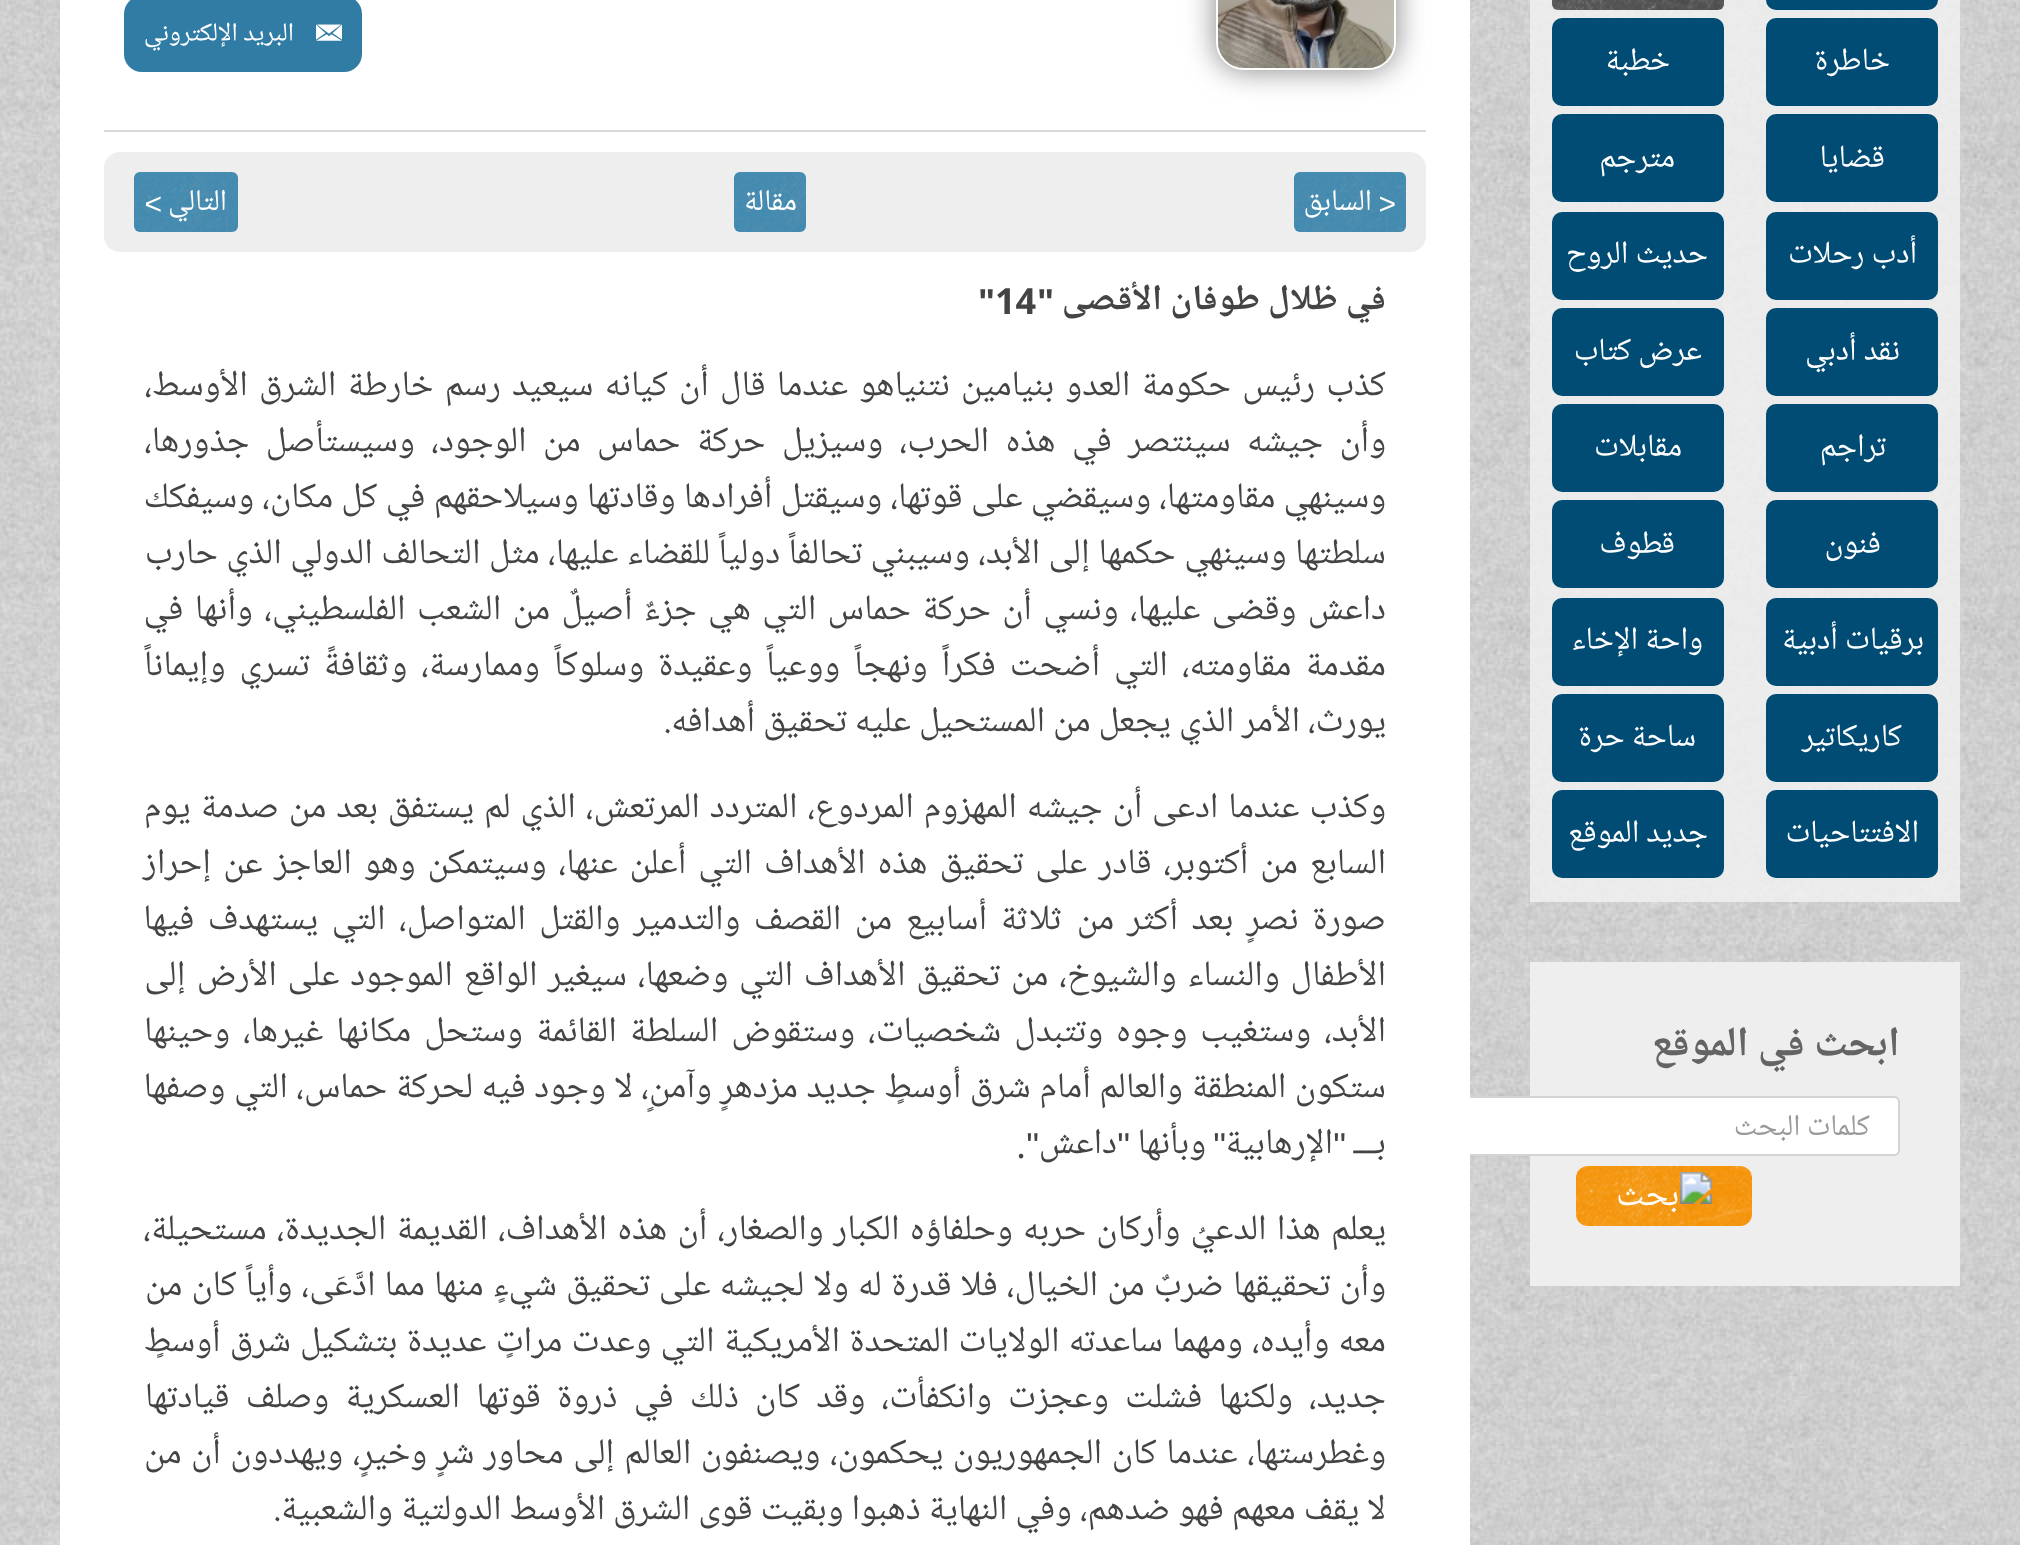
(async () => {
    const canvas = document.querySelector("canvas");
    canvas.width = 2020;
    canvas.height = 1545;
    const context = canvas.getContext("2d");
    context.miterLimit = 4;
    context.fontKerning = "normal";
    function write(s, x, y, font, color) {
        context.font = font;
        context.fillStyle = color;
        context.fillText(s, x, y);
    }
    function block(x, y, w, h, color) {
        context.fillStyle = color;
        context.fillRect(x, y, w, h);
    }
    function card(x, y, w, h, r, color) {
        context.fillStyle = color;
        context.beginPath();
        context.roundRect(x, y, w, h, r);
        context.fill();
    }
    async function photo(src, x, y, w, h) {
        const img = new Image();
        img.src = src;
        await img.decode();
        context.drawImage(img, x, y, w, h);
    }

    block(0, 0, 2020, 1545, "rgb(255, 255, 255)");
    await photo("media/1.png", 0, 0, 2020, 1545);
    block(1530, 0, 430, 902, "rgba(242, 242, 242, 0.8)");
    card(1766, -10, 172, 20, 10, "rgb(1, 76, 116)");
    card(1552, -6, 172, 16, 6, "rgb(74, 74, 74)");
    await photo("media/2.png", 1552, 0, 172, 10);
    card(1766, 18, 172, 88, 10, "rgb(1, 76, 116)");
    context.direction = "rtl";
    write("خاطرة", 1890, 74, "32px Noto Naskh Arabic UI", "rgb(255, 255, 255)");
    card(1552, 18, 172, 88, 10, "rgb(1, 76, 116)");
    write("خطبة", 1670, 74, "32px Noto Naskh Arabic UI", "rgb(255, 255, 255)");
    card(1766, 114, 172, 88, 10, "rgb(1, 76, 116)");
    write("قضايا", 1885, 171, "32px Noto Naskh Arabic UI", "rgb(255, 255, 255)");
    card(1552, 114, 172, 88, 10, "rgb(1, 76, 116)");
    write("مترجم", 1675, 171, "32px Noto Naskh Arabic UI", "rgb(255, 255, 255)");
    card(1766, 212, 172, 88, 10, "rgb(1, 76, 116)");
    write("أدب رحلات", 1917, 267, "32px Noto Naskh Arabic UI", "rgb(255, 255, 255)");
    card(1552, 212, 172, 88, 10, "rgb(1, 76, 116)");
    write("حديث الروح", 1708, 267, "32px Noto Naskh Arabic UI", "rgb(255, 255, 255)");
    card(1766, 308, 172, 88, 10, "rgb(1, 76, 116)");
    write("نقد أدبي", 1900, 364, "32px Noto Naskh Arabic UI", "rgb(255, 255, 255)");
    card(1552, 308, 172, 88, 10, "rgb(1, 76, 116)");
    write("عرض كتاب", 1702, 364, "32px Noto Naskh Arabic UI", "rgb(255, 255, 255)");
    card(1766, 404, 172, 88, 10, "rgb(1, 76, 116)");
    write("تراجم", 1886, 460, "32px Noto Naskh Arabic UI", "rgb(255, 255, 255)");
    card(1552, 404, 172, 88, 10, "rgb(1, 76, 116)");
    write("مقابلات", 1682, 460, "32px Noto Naskh Arabic UI", "rgb(255, 255, 255)");
    card(1766, 500, 172, 88, 10, "rgb(1, 76, 116)");
    write("فنون", 1881, 557, "32px Noto Naskh Arabic UI", "rgb(255, 255, 255)");
    card(1552, 500, 172, 88, 10, "rgb(1, 76, 116)");
    write("قطوف", 1675, 557, "32px Noto Naskh Arabic UI", "rgb(255, 255, 255)");
    card(1766, 598, 172, 88, 10, "rgb(1, 76, 116)");
    write("برقيات أدبية", 1924, 653, "32px Noto Naskh Arabic UI", "rgb(255, 255, 255)");
    card(1552, 598, 172, 88, 10, "rgb(1, 76, 116)");
    write("واحة الإخاء", 1703, 653, "32px Noto Naskh Arabic UI", "rgb(255, 255, 255)");
    card(1766, 694, 172, 88, 10, "rgb(1, 76, 116)");
    write("كاريكاتير", 1902, 750, "32px Noto Naskh Arabic UI", "rgb(255, 255, 255)");
    card(1552, 694, 172, 88, 10, "rgb(1, 76, 116)");
    write("ساحة حرة", 1696, 750, "32px Noto Naskh Arabic UI", "rgb(255, 255, 255)");
    card(1766, 790, 172, 88, 10, "rgb(1, 76, 116)");
    write("الافتتاحيات", 1919, 846, "32px Noto Naskh Arabic UI", "rgb(255, 255, 255)");
    card(1552, 790, 172, 88, 10, "rgb(1, 76, 116)");
    write("جديد الموقع", 1708, 846, "32px Noto Naskh Arabic UI", "rgb(255, 255, 255)");
    block(1530, 962, 430, 324, "rgb(238, 238, 238)");
    write("ابحث في الموقع", 1900, 1061, "bold 42px Noto Naskh Arabic UI", "rgb(100, 100, 100)");
    context.fillStyle = "rgb(255, 255, 255)";
    context.beginPath();
    context.roundRect(1337, 1097, 562, 58, 5);
    context.fill();
    context.strokeStyle = "rgb(212, 212, 212)";
    context.lineWidth = 2;
    context.stroke();
    write("كلمات البحث", 1870, 1139, "30px Noto Naskh Arabic UI", "rgb(153, 153, 153)");
    card(1576, 1166, 176, 60, 12, "rgb(244, 144, 0)");
    await photo("media/3.png", 1576, 1166, 176, 60);
    await photo("media/4.png", 1618, 1172, 94, 41);
    block(60, 0, 1410, 1545, "rgb(255, 255, 255)");
    block(104, 130, 1322, 2, "rgb(217, 217, 217)");
    context.fillStyle = "rgb(132, 132, 132)";
    context.filter = "blur(15px)";
    context.beginPath();
    context.roundRect(1216, -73, 180, 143, 28);
    context.fill();
    context.filter = "none";
    context.beginPath();
    context.roundRect(1217, -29, 178, 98, 27);
    context.strokeStyle = "rgb(255, 255, 255)";
    context.stroke();
    await photo("media/5.png", 1218, 0, 176, 68);
    card(124, -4, 238, 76, 18, "rgb(49, 124, 164)");
    await photo("media/6.png", 316, 24, 26, 17);
    write("البريد الإلكتروني", 294, 44, "26px Noto Naskh Arabic UI", "rgb(255, 255, 255)");
    card(104, 152, 1322, 100, 16, "rgb(238, 238, 238)");
    card(1294, 172, 112, 60, 6, "rgb(63, 138, 178)");
    await photo("media/7.png", 1294, 172, 112, 60);
    write("<", 1396, 214, "30px Liberation Sans", "rgb(255, 255, 255)");
    write("السابق", 1372, 214, "30px Noto Naskh Arabic UI", "rgb(255, 255, 255)");
    card(734, 172, 72, 60, 6, "rgb(63, 138, 178)");
    await photo("media/8.png", 734, 172, 72, 60);
    write("مقالة", 797, 214, "30px Noto Naskh Arabic UI", "rgb(255, 255, 255)");
    card(134, 172, 104, 60, 6, "rgb(63, 138, 178)");
    await photo("media/9.png", 134, 172, 104, 60);
    write("التالي", 227, 214, "30px Noto Naskh Arabic UI", "rgb(255, 255, 255)");
    write(">", 162, 214, "30px Liberation Sans", "rgb(255, 255, 255)");
    write("في ظلال طوفان الأقصى", 1386, 314, "bold 36px Noto Naskh Arabic UI", "rgb(68, 68, 68)");
    write("\"", 1054, 314, "bold 36px Liberation Sans", "rgb(68, 68, 68)");
    context.direction = "ltr";
    write("14", 995, 314, "bold 36px Noto Naskh Arabic UI", "rgb(68, 68, 68)");
    write("\"", 978, 314, "bold 36px Liberation Sans", "rgb(68, 68, 68)");
    context.wordSpacing = "3.25px";
    context.direction = "rtl";
    write("كذب رئيس حكومة العدو بنيامين نتنياهو عندما قال أن كيانه سيعيد رسم خارطة الشرق الأوسط،", 1386, 400, "36px Noto Naskh Arabic UI", "rgb(68, 68, 68)");
    context.wordSpacing = "8.5px";
    write("وأن جيشه سينتصر في هذه الحرب، وسيزيل حركة حماس من الوجود، وسيستأصل جذورها،", 1386, 456, "36px Noto Naskh Arabic UI", "rgb(68, 68, 68)");
    context.wordSpacing = "0.25px";
    write("وسينهي مقاومتها، وسيقضي على قوتها، وسيقتل أفرادها وقادتها وسيلاحقهم في كل مكان، وسيفكك", 1386, 512, "36px Noto Naskh Arabic UI", "rgb(68, 68, 68)");
    context.wordSpacing = "0.5px";
    write("سلطتها وسينهي حكمها إلى الأبد، وسيبني تحالفاً دولياً للقضاء عليها، مثل التحالف الدولي الذي حارب", 1386, 568, "36px Noto Naskh Arabic UI", "rgb(68, 68, 68)");
    context.wordSpacing = "3.4px";
    write("داعش وقضى عليها، ونسي أن حركة حماس التي هي جزءٌ أصيلٌ من الشعب الفلسطيني، وأنها في", 1386, 624, "36px Noto Naskh Arabic UI", "rgb(68, 68, 68)");
    context.wordSpacing = "6px";
    write("مقدمة مقاومته، التي أضحت فكراً ونهجاً ووعياً وعقيدة وسلوكاً وممارسة، وثقافةً تسري وإيماناً", 1386, 680, "36px Noto Naskh Arabic UI", "rgb(68, 68, 68)");
    context.wordSpacing = "0px";
    write("يورث، الأمر الذي يجعل من المستحيل عليه تحقيق أهدافه.", 1386, 736, "36px Noto Naskh Arabic UI", "rgb(68, 68, 68)");
    context.wordSpacing = "1.9px";
    write("وكذب عندما ادعى أن جيشه المهزوم المردوع، المتردد المرتعش، الذي لم يستفق بعد من صدمة يوم", 1386, 822, "36px Noto Naskh Arabic UI", "rgb(68, 68, 68)");
    context.wordSpacing = "4px";
    write("السابع من أكتوبر، قادر على تحقيق هذه الأهداف التي أعلن عنها، وسيتمكن وهو العاجز عن إحراز", 1386, 878, "36px Noto Naskh Arabic UI", "rgb(68, 68, 68)");
    context.wordSpacing = "5.5px";
    write("صورة نصرٍ بعد أكثر من ثلاثة أسابيع من القصف والتدمير والقتل المتواصل، التي يستهدف فيها", 1386, 934, "36px Noto Naskh Arabic UI", "rgb(68, 68, 68)");
    context.wordSpacing = "2.9px";
    write("الأطفال والنساء والشيوخ، من تحقيق الأهداف التي وضعها، سيغير الواقع الموجود على الأرض إلى", 1386, 990, "36px Noto Naskh Arabic UI", "rgb(68, 68, 68)");
    context.wordSpacing = "5.1px";
    write("الأبد، وستغيب وجوه وتتبدل شخصيات، وستقوض السلطة القائمة وستحل مكانها غيرها، وحينها", 1386, 1046, "36px Noto Naskh Arabic UI", "rgb(68, 68, 68)");
    context.wordSpacing = "0.5px";
    write("ستكون المنطقة والعالم أمام شرق أوسطٍ جديد مزدهرٍ وآمنٍ، لا وجود فيه لحركة حماس، التي وصفها", 1386, 1102, "36px Noto Naskh Arabic UI", "rgb(68, 68, 68)");
    context.wordSpacing = "0px";
    write("\"", 1346, 1158, "36px Liberation Sans", "rgb(68, 68, 68)");
    write("الإرهابية", 1333, 1158, "36px Noto Naskh Arabic UI", "rgb(68, 68, 68)");
    write("\"", 1226, 1158, "36px Liberation Sans", "rgb(68, 68, 68)");
    write("وبأنها", 1206, 1158, "36px Noto Naskh Arabic UI", "rgb(68, 68, 68)");
    write("\"", 1130, 1158, "36px Liberation Sans", "rgb(68, 68, 68)");
    write("داعش", 1117, 1158, "36px Noto Naskh Arabic UI", "rgb(68, 68, 68)");
    write("\"", 1039, 1158, "36px Liberation Sans", "rgb(68, 68, 68)");
    write("بـــ", 1386, 1158, "36px Noto Naskh Arabic UI", "rgb(68, 68, 68)");
    write(".", 1026, 1158, "36px Noto Naskh Arabic UI", "rgb(68, 68, 68)");
    context.wordSpacing = "2.25px";
    write("يعلم هذا الدعيُ وأركان حربه وحلفاؤه الكبار والصغار، أن هذه الأهداف، القديمة الجديدة، مستحيلة،", 1386, 1244, "36px Noto Naskh Arabic UI", "rgb(68, 68, 68)");
    context.wordSpacing = "1.1px";
    write("وأن تحقيقها ضربٌ من الخيال، فلا قدرة له ولا لجيشه على تحقيق شيءٍ منها مما ادَّعَى، وأياً كان من", 1386, 1300, "36px Noto Naskh Arabic UI", "rgb(68, 68, 68)");
    context.wordSpacing = "1.2px";
    write("معه وأيده، ومهما ساعدته الولايات المتحدة الأمريكية التي وعدت مراتٍ عديدة بتشكيل شرق أوسطٍ", 1386, 1356, "36px Noto Naskh Arabic UI", "rgb(68, 68, 68)");
    context.wordSpacing = "8.25px";
    write("جديد، ولكنها فشلت وعجزت وانكفأت، وقد كان ذلك في ذروة قوتها العسكرية وصلف قيادتها", 1386, 1412, "36px Noto Naskh Arabic UI", "rgb(68, 68, 68)");
    context.wordSpacing = "1.6px";
    write("وغطرستها، عندما كان الجمهوريون يحكمون، ويصنفون العالم إلى محاور شرٍ وخيرٍ، ويهددون أن من", 1386, 1468, "36px Noto Naskh Arabic UI", "rgb(68, 68, 68)");
    context.wordSpacing = "0px";
    write("لا يقف معهم فهو ضدهم، وفي النهاية ذهبوا وبقيت قوى الشرق الأوسط الدولتية والشعبية.", 1386, 1524, "36px Noto Naskh Arabic UI", "rgb(68, 68, 68)");
})();
